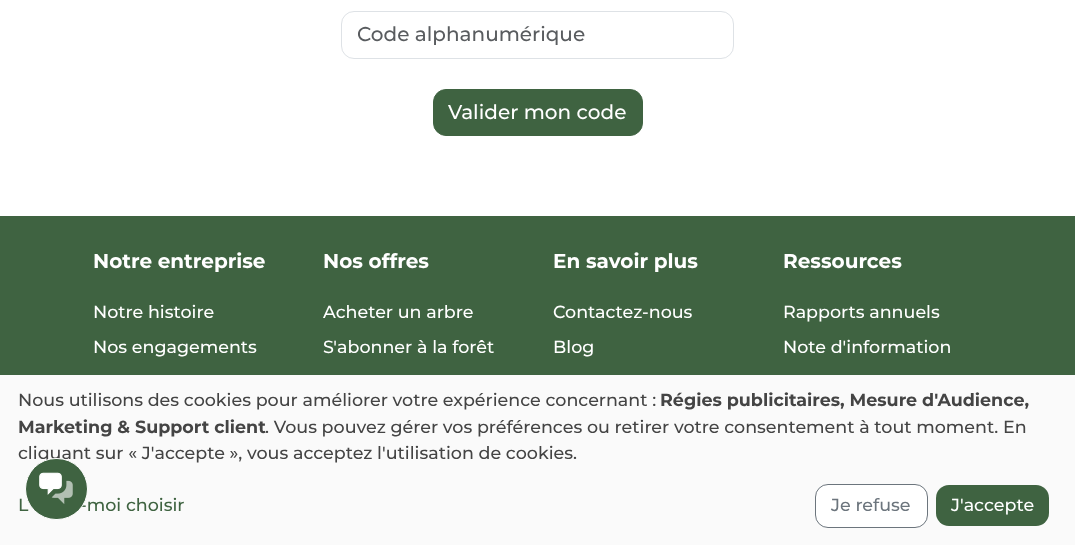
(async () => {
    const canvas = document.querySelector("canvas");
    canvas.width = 1075;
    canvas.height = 545;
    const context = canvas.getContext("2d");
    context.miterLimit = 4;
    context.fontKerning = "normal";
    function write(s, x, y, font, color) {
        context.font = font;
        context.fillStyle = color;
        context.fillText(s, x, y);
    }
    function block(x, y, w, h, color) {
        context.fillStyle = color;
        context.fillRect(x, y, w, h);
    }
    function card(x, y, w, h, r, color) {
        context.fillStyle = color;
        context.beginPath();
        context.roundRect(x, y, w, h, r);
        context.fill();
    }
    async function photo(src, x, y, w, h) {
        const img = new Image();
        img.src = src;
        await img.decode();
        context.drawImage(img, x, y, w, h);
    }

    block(0, 0, 1075, 545, "rgb(255, 255, 255)");
    context.beginPath();
    context.roundRect(341.5, 11.5, 392, 47, 12.5);
    context.strokeStyle = "rgb(222, 226, 230)";
    context.stroke();
    write("Code alphanumérique", 357, 41, "500 20px Montserrat", "rgb(89, 92, 95)");
    context.fillStyle = "rgb(63, 99, 65)";
    context.beginPath();
    context.roundRect(433.5, 89.5, 209, 46, 12.5);
    context.fill();
    context.strokeStyle = "rgb(63, 99, 65)";
    context.stroke();
    write("Valider mon code", 448, 119, "500 20px Montserrat", "rgb(255, 255, 255)");
    block(0, 216, 1075, 159, "rgb(63, 99, 65)");
    write("Notre entreprise", 93, 268, "bold 20px Montserrat", "rgb(255, 255, 255)");
    write("Notre histoire", 93, 318, "500 17.5px Montserrat", "rgb(255, 255, 255)");
    write("Nos engagements", 93, 353, "500 17.5px Montserrat", "rgb(255, 255, 255)");
    write("Nos offres", 323, 268, "bold 20px Montserrat", "rgb(255, 255, 255)");
    write("Acheter un arbre", 323, 318, "500 17.5px Montserrat", "rgb(255, 255, 255)");
    write("S'abonner à la forêt", 323, 353, "500 17.5px Montserrat", "rgb(255, 255, 255)");
    write("En savoir plus", 553, 268, "bold 20px Montserrat", "rgb(255, 255, 255)");
    write("Contactez-nous", 553, 318, "500 17.5px Montserrat", "rgb(255, 255, 255)");
    write("Blog", 553, 353, "500 17.5px Montserrat", "rgb(255, 255, 255)");
    write("Ressources", 783, 268, "bold 20px Montserrat", "rgb(255, 255, 255)");
    write("Rapports annuels", 783, 318, "500 17.5px Montserrat", "rgb(255, 255, 255)");
    write("Note d'information", 783, 353, "500 17.5px Montserrat", "rgb(255, 255, 255)");
    block(0, 375, 1075, 170, "rgb(250, 250, 250)");
    write("Nous utilisons des cookies pour améliorer votre expérience concernant :", 18, 406, "500 17.5px Montserrat", "rgb(68, 68, 68)");
    write("Régies publicitaires, Mesure d'Audience,", 660, 406, "bold 17.5px Montserrat", "rgb(68, 68, 68)");
    write("Marketing & Support client", 18, 433, "bold 17.5px Montserrat", "rgb(68, 68, 68)");
    write(". Vous pouvez gérer vos préférences ou retirer votre consentement à tout moment. En", 265, 433, "500 17.5px Montserrat", "rgb(68, 68, 68)");
    write("cliquant sur « J'accepte », vous acceptez l'utilisation de cookies.", 18, 459, "500 17.5px Montserrat", "rgb(68, 68, 68)");
    write("L", 18, 511, "500 17.5px Montserrat", "rgb(63, 99, 65)");
    write("-moi choisir", 80, 511, "500 17.5px Montserrat", "rgb(63, 99, 65)");
    context.fillStyle = "rgb(255, 255, 255)";
    context.beginPath();
    context.roundRect(815.5, 484.5, 112, 43, 12.5);
    context.fill();
    context.strokeStyle = "rgb(108, 117, 125)";
    context.stroke();
    write("Je refuse", 831, 511, "500 17.5px Montserrat", "rgb(108, 117, 125)");
    card(936, 485, 113, 41, 13, "rgb(63, 99, 65)");
    write("J'accepte", 951, 511, "500 17.5px Montserrat", "rgb(255, 255, 255)");
    context.fillStyle = "rgb(63, 99, 65)";
    context.beginPath();
    context.roundRect(25.5, 458.5, 62, 61, 30.5);
    context.fill();
    context.strokeStyle = "rgb(255, 255, 255)";
    context.stroke();
    await photo("media/1.png", 39, 472, 34, 32);
})();
